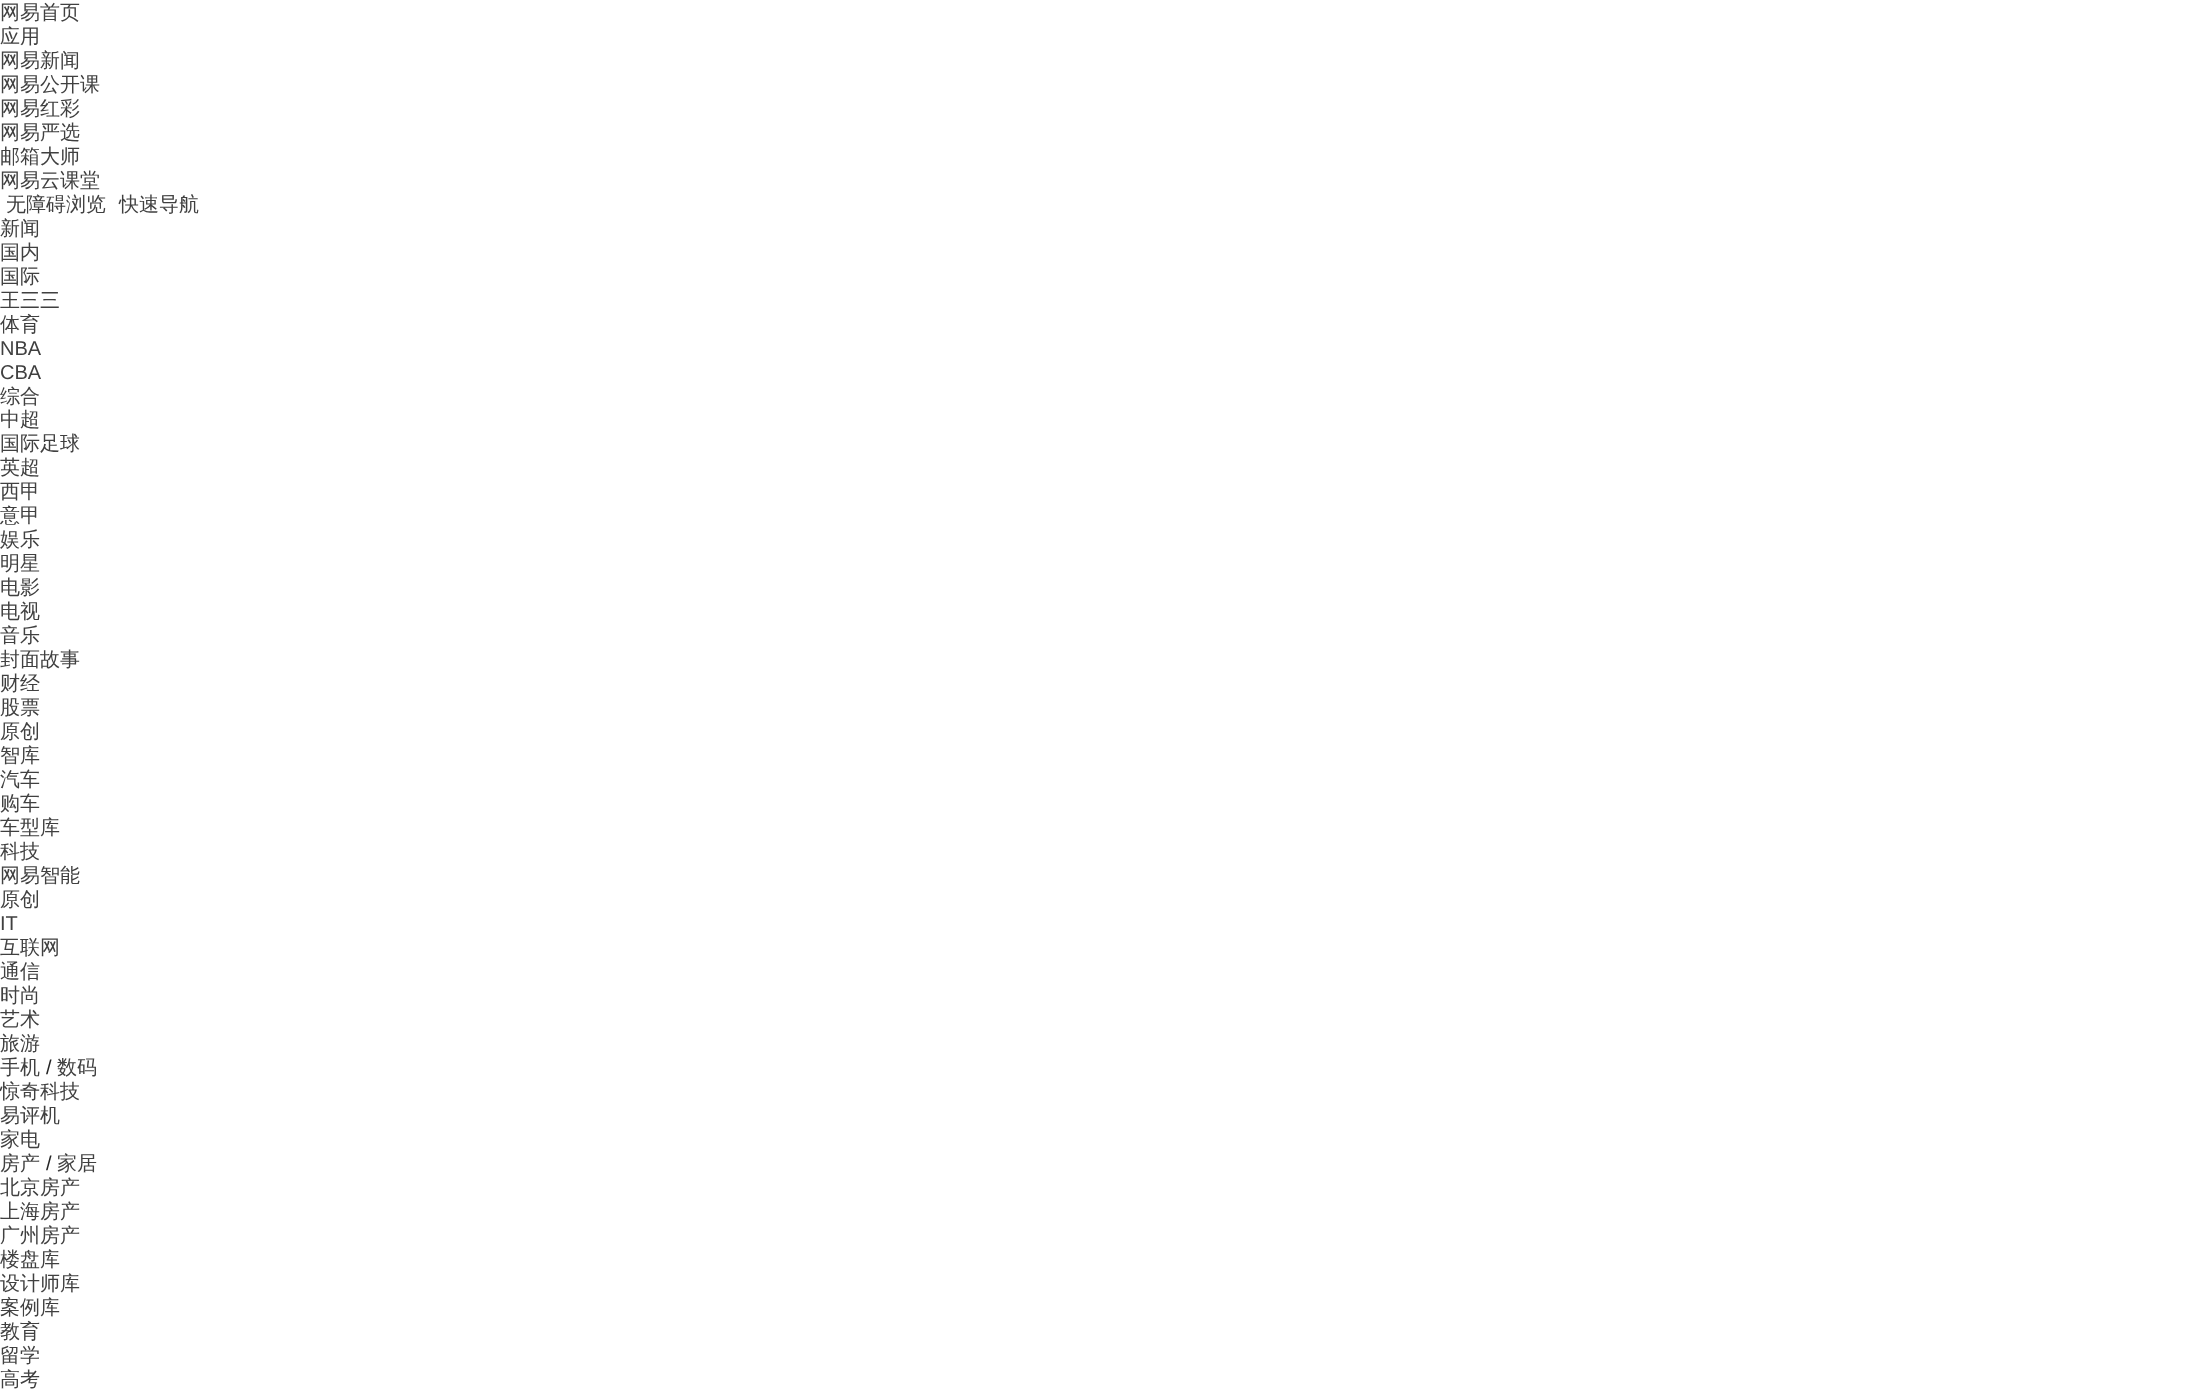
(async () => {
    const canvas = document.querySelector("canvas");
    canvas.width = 2198;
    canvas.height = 1397;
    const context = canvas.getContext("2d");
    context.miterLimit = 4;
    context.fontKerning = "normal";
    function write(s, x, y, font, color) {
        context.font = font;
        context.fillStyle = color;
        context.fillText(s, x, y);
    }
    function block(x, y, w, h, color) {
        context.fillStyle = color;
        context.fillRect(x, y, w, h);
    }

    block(0, 0, 2198, 1397, "rgb(255, 255, 255)");
    write("网易首页", 0, 19, "500 20px WenQuanYi Zen Hei", "rgb(64, 64, 64)");
    write("应用", 0, 43, "500 20px WenQuanYi Zen Hei", "rgb(64, 64, 64)");
    write("网易新闻", 0, 67, "500 20px WenQuanYi Zen Hei", "rgb(64, 64, 64)");
    write("网易公开课", 0, 91, "500 20px WenQuanYi Zen Hei", "rgb(64, 64, 64)");
    write("网易红彩", 0, 115, "500 20px WenQuanYi Zen Hei", "rgb(64, 64, 64)");
    write("网易严选", 0, 139, "500 20px WenQuanYi Zen Hei", "rgb(64, 64, 64)");
    write("邮箱大师", 0, 163, "500 20px WenQuanYi Zen Hei", "rgb(64, 64, 64)");
    write("网易云课堂", 0, 187, "500 20px WenQuanYi Zen Hei", "rgb(64, 64, 64)");
    write("无障碍浏览", 6, 211, "500 20px WenQuanYi Zen Hei", "rgb(64, 64, 64)");
    write("快速导航", 119, 211, "500 20px WenQuanYi Zen Hei", "rgb(64, 64, 64)");
    write("新闻", 0, 235, "500 20px WenQuanYi Zen Hei", "rgb(64, 64, 64)");
    write("国内", 0, 259, "500 20px WenQuanYi Zen Hei", "rgb(64, 64, 64)");
    write("国际", 0, 283, "500 20px WenQuanYi Zen Hei", "rgb(64, 64, 64)");
    write("王三三", 0, 307, "500 20px WenQuanYi Zen Hei", "rgb(64, 64, 64)");
    write("体育", 0, 331, "500 20px WenQuanYi Zen Hei", "rgb(64, 64, 64)");
    write("NBA", 0, 355, "20px Liberation Sans", "rgb(64, 64, 64)");
    write("CBA", 0, 379, "20px Liberation Sans", "rgb(64, 64, 64)");
    write("综合", 0, 403, "500 20px WenQuanYi Zen Hei", "rgb(64, 64, 64)");
    write("中超", 0, 426, "500 20px WenQuanYi Zen Hei", "rgb(64, 64, 64)");
    write("国际足球", 0, 450, "500 20px WenQuanYi Zen Hei", "rgb(64, 64, 64)");
    write("英超", 0, 474, "500 20px WenQuanYi Zen Hei", "rgb(64, 64, 64)");
    write("西甲", 0, 498, "500 20px WenQuanYi Zen Hei", "rgb(64, 64, 64)");
    write("意甲", 0, 522, "500 20px WenQuanYi Zen Hei", "rgb(64, 64, 64)");
    write("娱乐", 0, 546, "500 20px WenQuanYi Zen Hei", "rgb(64, 64, 64)");
    write("明星", 0, 570, "500 20px WenQuanYi Zen Hei", "rgb(64, 64, 64)");
    write("电影", 0, 594, "500 20px WenQuanYi Zen Hei", "rgb(64, 64, 64)");
    write("电视", 0, 618, "500 20px WenQuanYi Zen Hei", "rgb(64, 64, 64)");
    write("音乐", 0, 642, "500 20px WenQuanYi Zen Hei", "rgb(64, 64, 64)");
    write("封面故事", 0, 666, "500 20px WenQuanYi Zen Hei", "rgb(64, 64, 64)");
    write("财经", 0, 690, "500 20px WenQuanYi Zen Hei", "rgb(64, 64, 64)");
    write("股票", 0, 714, "500 20px WenQuanYi Zen Hei", "rgb(64, 64, 64)");
    write("原创", 0, 738, "500 20px WenQuanYi Zen Hei", "rgb(64, 64, 64)");
    write("智库", 0, 762, "500 20px WenQuanYi Zen Hei", "rgb(64, 64, 64)");
    write("汽车", 0, 786, "500 20px WenQuanYi Zen Hei", "rgb(64, 64, 64)");
    write("购车", 0, 810, "500 20px WenQuanYi Zen Hei", "rgb(64, 64, 64)");
    write("车型库", 0, 834, "500 20px WenQuanYi Zen Hei", "rgb(64, 64, 64)");
    write("科技", 0, 858, "500 20px WenQuanYi Zen Hei", "rgb(64, 64, 64)");
    write("网易智能", 0, 882, "500 20px WenQuanYi Zen Hei", "rgb(64, 64, 64)");
    write("原创", 0, 906, "500 20px WenQuanYi Zen Hei", "rgb(64, 64, 64)");
    write("IT", 0, 930, "20px Liberation Sans", "rgb(64, 64, 64)");
    write("互联网", 0, 954, "500 20px WenQuanYi Zen Hei", "rgb(64, 64, 64)");
    write("通信", 0, 978, "500 20px WenQuanYi Zen Hei", "rgb(64, 64, 64)");
    write("时尚", 0, 1002, "500 20px WenQuanYi Zen Hei", "rgb(64, 64, 64)");
    write("艺术", 0, 1026, "500 20px WenQuanYi Zen Hei", "rgb(64, 64, 64)");
    write("旅游", 0, 1050, "500 20px WenQuanYi Zen Hei", "rgb(64, 64, 64)");
    write("手机", 0, 1074, "500 20px WenQuanYi Zen Hei", "rgb(64, 64, 64)");
    write("/", 46, 1074, "20px Liberation Sans", "rgb(37, 37, 37)");
    write("数码", 57, 1074, "500 20px WenQuanYi Zen Hei", "rgb(64, 64, 64)");
    write("惊奇科技", 0, 1098, "500 20px WenQuanYi Zen Hei", "rgb(64, 64, 64)");
    write("易评机", 0, 1122, "500 20px WenQuanYi Zen Hei", "rgb(64, 64, 64)");
    write("家电", 0, 1146, "500 20px WenQuanYi Zen Hei", "rgb(64, 64, 64)");
    write("房产", 0, 1170, "500 20px WenQuanYi Zen Hei", "rgb(64, 64, 64)");
    write("/", 46, 1170, "20px Liberation Sans", "rgb(37, 37, 37)");
    write("家居", 57, 1170, "500 20px WenQuanYi Zen Hei", "rgb(64, 64, 64)");
    write("北京房产", 0, 1194, "500 20px WenQuanYi Zen Hei", "rgb(64, 64, 64)");
    write("上海房产", 0, 1218, "500 20px WenQuanYi Zen Hei", "rgb(64, 64, 64)");
    write("广州房产", 0, 1242, "500 20px WenQuanYi Zen Hei", "rgb(64, 64, 64)");
    write("楼盘库", 0, 1266, "500 20px WenQuanYi Zen Hei", "rgb(64, 64, 64)");
    write("设计师库", 0, 1290, "500 20px WenQuanYi Zen Hei", "rgb(64, 64, 64)");
    write("案例库", 0, 1314, "500 20px WenQuanYi Zen Hei", "rgb(64, 64, 64)");
    write("教育", 0, 1338, "500 20px WenQuanYi Zen Hei", "rgb(64, 64, 64)");
    write("留学", 0, 1362, "500 20px WenQuanYi Zen Hei", "rgb(64, 64, 64)");
    write("高考", 0, 1386, "500 20px WenQuanYi Zen Hei", "rgb(64, 64, 64)");
})();
